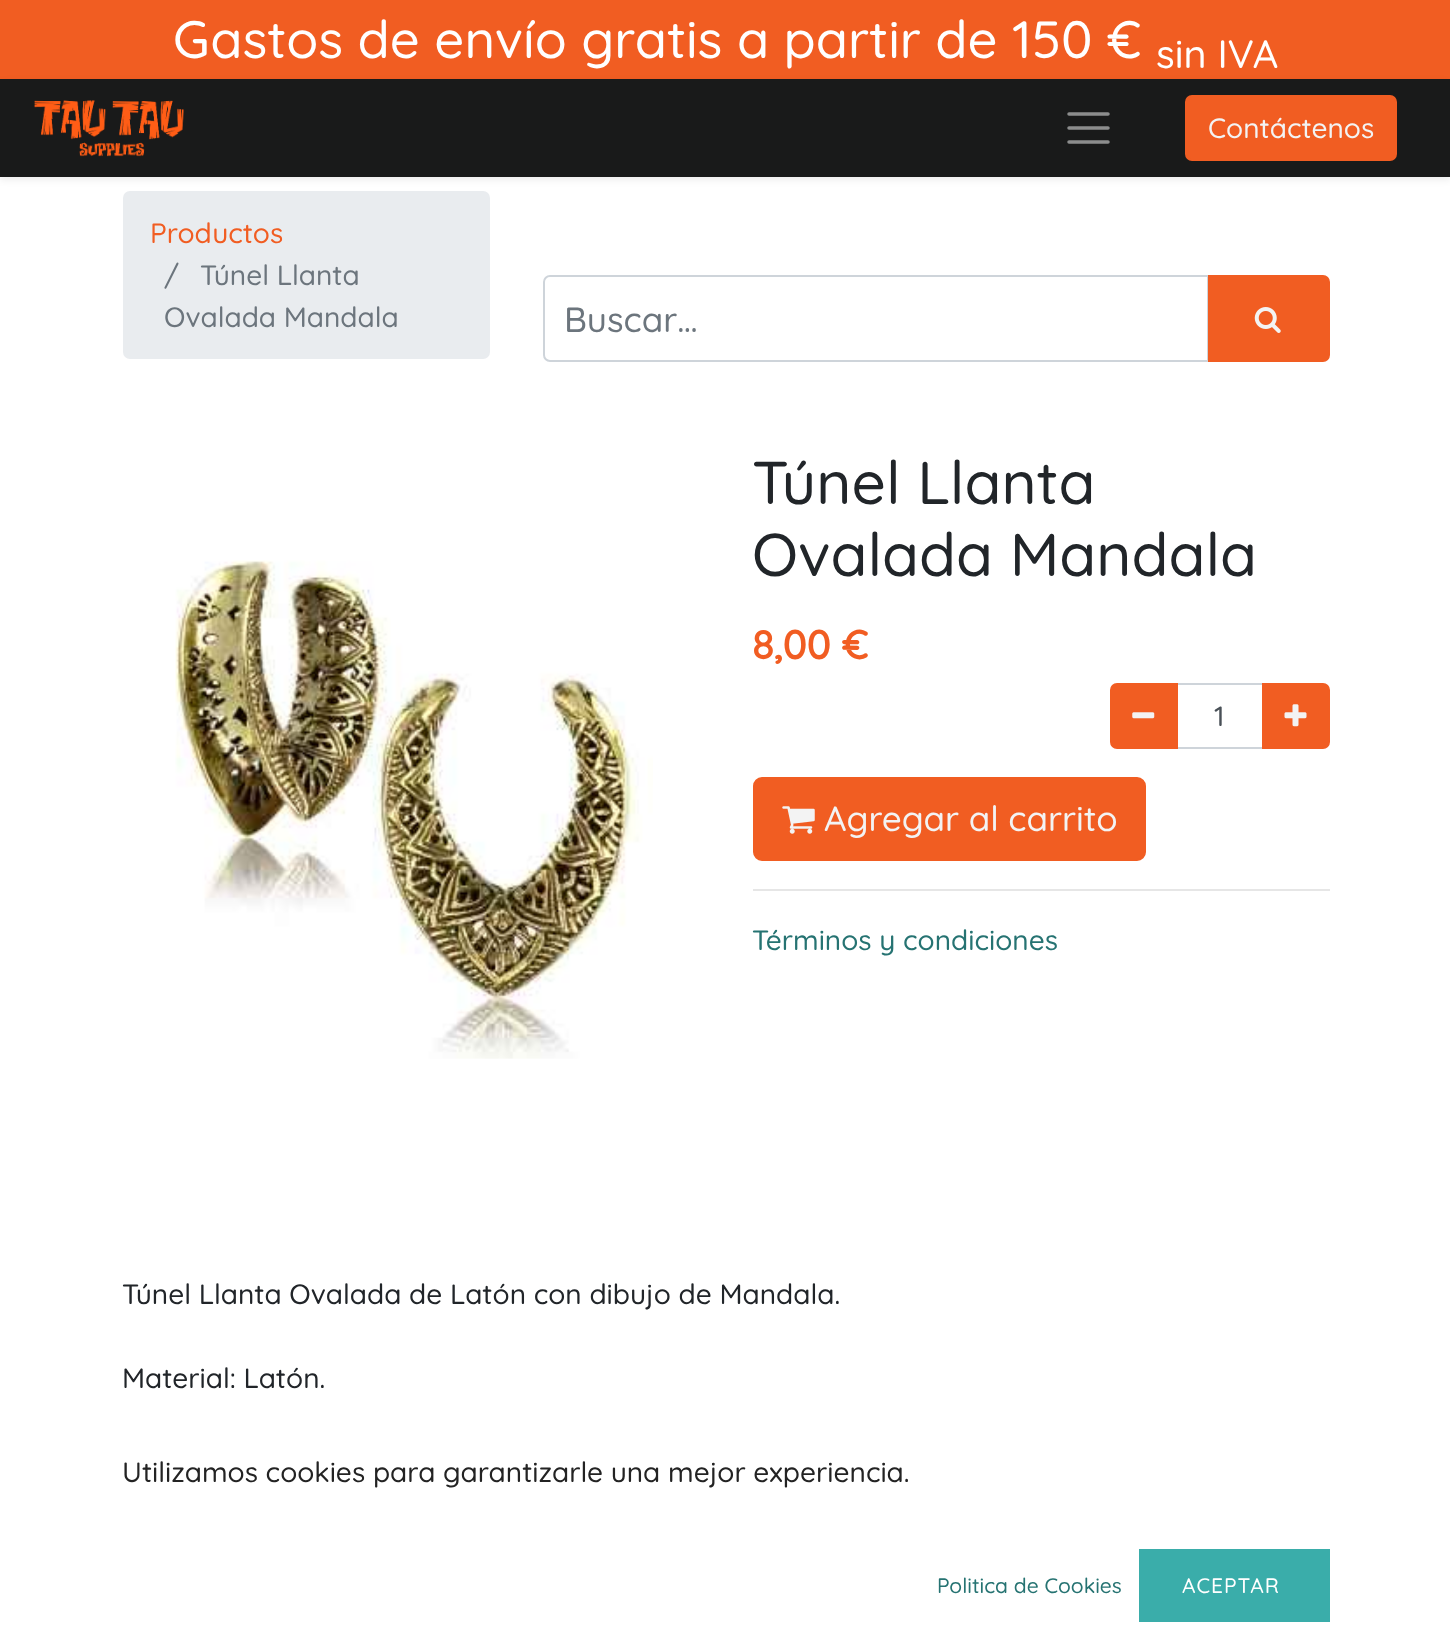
(async () => {
    const canvas = document.querySelector("canvas");
    canvas.width = 1450;
    canvas.height = 1650;
    const context = canvas.getContext("2d");
    context.miterLimit = 4;
    context.fontKerning = "normal";
    function write(s, x, y, font, color) {
        context.font = font;
        context.fillStyle = color;
        context.fillText(s, x, y);
    }
    function block(x, y, w, h, color) {
        context.fillStyle = color;
        context.fillRect(x, y, w, h);
    }
    function card(x, y, w, h, r, color) {
        context.fillStyle = color;
        context.beginPath();
        context.roundRect(x, y, w, h, r);
        context.fill();
    }
    async function photo(src, x, y, w, h) {
        const img = new Image();
        img.src = src;
        await img.decode();
        context.drawImage(img, x, y, w, h);
    }

    block(0, 0, 1450, 1650, "rgb(255, 255, 255)");
    block(0, 0, 1450, 79, "rgb(241, 93, 34)");
    write("Gastos de envío gratis a partir de 150 €", 173, 58, "300 52.5px Quicksand", "rgb(255, 255, 255)");
    write("sin IVA", 1156, 68, "300 39.5px Quicksand", "rgb(255, 255, 255)");
    card(123, 191, 367, 168, 7, "rgb(233, 236, 239)");
    context.fillStyle = "rgba(0, 0, 0, 0.07)";
    context.filter = "blur(3.5px)";
    context.beginPath();
    context.rect(0, 82, 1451, 98);
    context.fill();
    context.filter = "none";
    block(0, 79, 1450, 98, "rgb(25, 26, 26)");
    await photo("media/1.png", 34, 100, 150, 57);
    context.beginPath();
    context.moveTo(1069, 114);
    context.lineTo(1108, 114);
    context.moveTo(1069, 128);
    context.lineTo(1108, 128);
    context.moveTo(1069, 142);
    context.lineTo(1108, 142);
    context.strokeStyle = "rgb(140, 141, 141)";
    context.lineWidth = 3.5;
    context.lineCap = "round";
    context.stroke();
    context.fillStyle = "rgb(241, 93, 34)";
    context.beginPath();
    context.roundRect(1186, 96, 210, 64, 6);
    context.fill();
    context.strokeStyle = "rgb(241, 93, 34)";
    context.lineWidth = 2;
    context.stroke();
    write("Contáctenos", 1208, 138, "300 28px Quicksand", "rgb(243, 243, 243)");
    write("Productos", 150, 243, "300 28px Quicksand", "rgb(241, 93, 34)");
    write("/", 164, 285, "300 28px Quicksand", "rgb(108, 117, 125)");
    write("Túnel Llanta", 200, 285, "300 28px Quicksand", "rgb(108, 117, 125)");
    write("Ovalada Mandala", 164, 327, "300 28px Quicksand", "rgb(108, 117, 125)");
    context.beginPath();
    context.roundRect(544, 276, 664, 85, [6, 0, 0, 6]);
    context.strokeStyle = "rgb(206, 212, 218)";
    context.stroke();
    write("Buscar…", 564, 332, "300 35px Quicksand", "rgb(108, 117, 125)");
    context.fillStyle = "rgb(241, 93, 34)";
    context.beginPath();
    context.roundRect(1209, 276, 120, 85, [0, 6, 6, 0]);
    context.fill();
    context.strokeStyle = "rgb(241, 93, 34)";
    context.stroke();
    await photo("media/2.png", 1254, 307, 27, 26);
    await photo("media/3.png", 175, 560, 478, 499);
    write("Túnel Llanta", 752, 504, "300 60.25px Quicksand", "rgb(33, 37, 41)");
    write("Ovalada Mandala", 752, 576, "300 60.25px Quicksand", "rgb(33, 37, 41)");
    write("8,00 €", 752, 659, "bold 40px Quicksand", "rgb(241, 93, 34)");
    context.strokeStyle = "rgb(206, 212, 218)";
    context.strokeRect(1177, 684, 86, 64);
    context.beginPath();
    context.roundRect(1111, 684, 66, 64, [6, 0, 0, 6]);
    context.fill();
    context.strokeStyle = "rgb(241, 93, 34)";
    context.stroke();
    await photo("media/4.png", 1132, 712, 23, 7);
    write("1", 1214, 726, "300 28px Quicksand", "rgb(73, 80, 87)");
    context.fillStyle = "rgb(241, 93, 34)";
    context.beginPath();
    context.roundRect(1263, 684, 66, 64, [0, 6, 6, 0]);
    context.fill();
    context.stroke();
    await photo("media/5.png", 1284, 704, 23, 23);
    context.beginPath();
    context.roundRect(754, 778, 391, 82, 8);
    context.fill();
    context.stroke();
    await photo("media/6.png", 782, 806, 33, 28);
    write("Agregar al carrito", 824, 831, "300 35px Quicksand", "rgb(243, 243, 243)");
    block(753, 889, 577, 2, "rgb(230, 230, 230)");
    write("Términos y condiciones", 752, 950, "300 28px Quicksand", "rgb(38, 115, 114)");
    write("Túnel Llanta Ovalada de Latón con dibujo de Mandala.", 122, 1304, "300 28px Quicksand", "rgb(33, 37, 41)");
    write("Material: Latón.", 122, 1388, "300 28px Quicksand", "rgb(33, 37, 41)");
    write("Utilizamos cookies para garantizarle una mejor experiencia.", 122, 1482, "300 28px Quicksand", "rgb(35, 35, 35)");
    write("Politica de Cookies", 937, 1593, "300 21px Quicksand", "rgb(38, 115, 114)");
    block(1139, 1549, 191, 73, "rgb(58, 173, 170)");
    context.letterSpacing = "1px";
    write("ACEPTAR", 1182, 1593, "300 21px Quicksand", "rgb(255, 255, 255)");
})();
